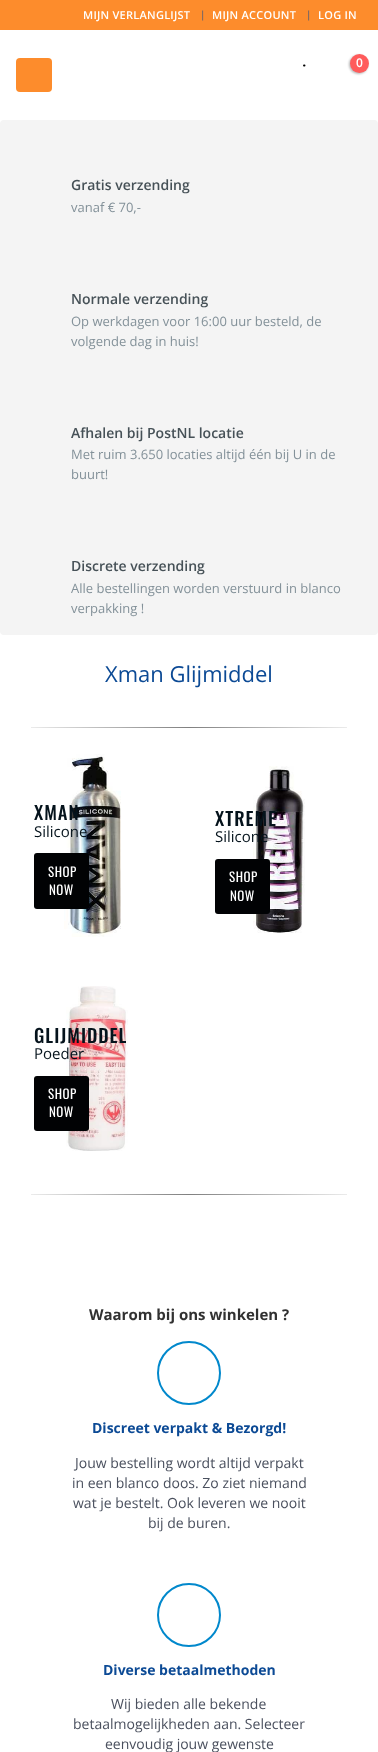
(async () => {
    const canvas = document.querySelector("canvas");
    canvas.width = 378;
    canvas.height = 1752;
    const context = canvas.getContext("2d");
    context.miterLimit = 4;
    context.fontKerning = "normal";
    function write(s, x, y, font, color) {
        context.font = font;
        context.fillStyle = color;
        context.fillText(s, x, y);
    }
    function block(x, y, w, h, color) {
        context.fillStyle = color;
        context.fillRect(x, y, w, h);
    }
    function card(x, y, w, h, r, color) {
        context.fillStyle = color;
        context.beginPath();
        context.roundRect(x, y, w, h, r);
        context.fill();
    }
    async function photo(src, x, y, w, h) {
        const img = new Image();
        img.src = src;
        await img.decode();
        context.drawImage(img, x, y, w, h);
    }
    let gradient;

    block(0, 0, 378, 1752, "rgb(255, 255, 255)");
    block(0, 0, 378, 30, "rgb(253, 140, 44)");
    context.letterSpacing = "0.25px";
    write("MIJN VERLANGLIJST", 83, 19, "600 11px Open Sans", "rgb(255, 255, 255)");
    context.letterSpacing = "0px";
    write("|", 200, 18, "10px Open Sans", "rgb(60, 87, 128)");
    context.letterSpacing = "0.25px";
    write("MIJN ACCOUNT", 212, 19, "600 11px Open Sans", "rgb(255, 255, 255)");
    context.letterSpacing = "0px";
    write("|", 306, 18, "10px Open Sans", "rgb(60, 87, 128)");
    context.letterSpacing = "0.25px";
    write("LOG IN", 318, 19, "600 11px Open Sans", "rgb(255, 255, 255)");
    card(16, 58, 36, 34, 4, "rgb(253, 140, 44)");
    context.beginPath();
    context.moveTo(304, 65.5);
    context.lineTo(304.5, 65.5);
    context.strokeStyle = "rgb(0, 0, 0)";
    context.lineWidth = 1.9;
    context.lineCap = "round";
    context.stroke();
    context.fillStyle = "rgba(0, 0, 0, 0.3)";
    context.filter = "blur(1px)";
    context.beginPath();
    context.roundRect(349, 55, 19, 19, 9.5);
    context.fill();
    context.filter = "none";
    context.fillStyle = "rgb(255, 91, 91)";
    context.beginPath();
    context.arc(359.5, 63.5, 9.5, 0, Math.PI * 2);
    context.fill();
    context.letterSpacing = "0px";
    write("0", 356, 67, "600 12px Open Sans", "rgb(255, 255, 255)");
    card(0, 120, 378, 515, 4, "rgb(244, 244, 244)");
    write("Gratis verzending", 71, 190, "600 14px Open Sans", "rgb(70, 81, 87)");
    write("vanaf € 70,-", 71, 212, "13px Open Sans", "rgb(131, 145, 153)");
    write("Normale verzending", 71, 304, "600 14px Open Sans", "rgb(70, 81, 87)");
    write("Op werkdagen voor 16:00 uur besteld, de", 71, 326, "13px Open Sans", "rgb(131, 145, 153)");
    write("volgende dag in huis!", 71, 346, "13px Open Sans", "rgb(131, 145, 153)");
    write("Afhalen bij PostNL locatie", 71, 438, "600 14px Open Sans", "rgb(70, 81, 87)");
    write("Met ruim 3.650 locaties altijd één bij U in de", 71, 459, "13px Open Sans", "rgb(131, 145, 153)");
    write("buurt!", 71, 479, "13px Open Sans", "rgb(131, 145, 153)");
    write("Discrete verzending", 71, 571, "600 14px Open Sans", "rgb(70, 81, 87)");
    write("Alle bestellingen worden verstuurd in blanco", 71, 593, "13px Open Sans", "rgb(131, 145, 153)");
    write("verpakking !", 71, 613, "13px Open Sans", "rgb(131, 145, 153)");
    write("Xman Glijmiddel", 105, 682, "22px Open Sans", "rgb(12, 74, 149)");
    gradient = context.createLinearGradient(31, 728, 347, 728);
    gradient.addColorStop(0, "rgb(235, 235, 235)");
    gradient.addColorStop(0.5, "rgb(128, 128, 128)");
    gradient.addColorStop(1, "rgb(235, 235, 235)");
    context.fillStyle = gradient;
    context.fillRect(31, 727, 316, 1);
    await photo("media/1.png", 64, 754, 57, 183);
    context.letterSpacing = "1px";
    write("XMAN", 34, 820, "500 18.5px Oswald", "rgb(5, 19, 28)");
    context.letterSpacing = "0px";
    write("Silicone", 34, 837, "15px Open Sans", "rgb(5, 19, 28)");
    card(34, 853, 55, 56, 3, "rgb(1, 2, 4)");
    context.letterSpacing = "0.5px";
    write("SHOP", 48, 877, "13px Oswald", "rgb(255, 255, 255)");
    write("NOW", 49, 895, "13px Oswald", "rgb(255, 255, 255)");
    await photo("media/2.png", 253, 766, 52, 167);
    context.letterSpacing = "1px";
    write("XTREME", 215, 826, "500 18.5px Oswald", "rgb(5, 19, 28)");
    context.letterSpacing = "0px";
    write("Silicone", 215, 842, "15px Open Sans", "rgb(5, 19, 28)");
    card(215, 859, 55, 55, 3, "rgb(1, 2, 4)");
    context.letterSpacing = "0.5px";
    write("SHOP", 229, 882, "13px Oswald", "rgb(255, 255, 255)");
    write("NOW", 230, 901, "13px Oswald", "rgb(255, 255, 255)");
    await photo("media/3.png", 66, 986, 62, 165);
    context.letterSpacing = "1px";
    write("GLIJMIDDEL", 34, 1043, "500 18.5px Oswald", "rgb(5, 19, 28)");
    context.letterSpacing = "0px";
    write("Poeder", 34, 1059, "15px Open Sans", "rgb(5, 19, 28)");
    card(34, 1076, 55, 55, 3, "rgb(1, 2, 4)");
    context.letterSpacing = "0.5px";
    write("SHOP", 48, 1099, "13px Oswald", "rgb(255, 255, 255)");
    write("NOW", 49, 1117, "13px Oswald", "rgb(255, 255, 255)");
    gradient = context.createLinearGradient(31, 1195, 347, 1195);
    gradient.addColorStop(0, "rgb(235, 235, 235)");
    gradient.addColorStop(0.5, "rgb(128, 128, 128)");
    gradient.addColorStop(1, "rgb(235, 235, 235)");
    context.fillStyle = gradient;
    context.fillRect(31, 1194, 316, 1);
    context.letterSpacing = "0px";
    write("Waarom bij ons winkelen ?", 89, 1320, "bold 15px Open Sans", "rgb(49, 49, 49)");
    context.beginPath();
    context.arc(189, 1373, 31, 0, Math.PI * 2);
    context.strokeStyle = "rgb(1, 136, 204)";
    context.lineWidth = 2;
    context.stroke();
    write("Discreet verpakt & Bezorgd!", 92, 1433, "bold 14px Open Sans", "rgb(12, 74, 149)");
    write("Jouw bestelling wordt altijd verpakt", 75, 1468, "14px Open Sans", "rgb(74, 80, 94)");
    write("in een blanco doos. Zo ziet niemand", 72, 1488, "14px Open Sans", "rgb(74, 80, 94)");
    write("wat je bestelt. Ook leveren we nooit", 73, 1508, "14px Open Sans", "rgb(74, 80, 94)");
    write("bij de buren.", 148, 1528, "14px Open Sans", "rgb(74, 80, 94)");
    context.beginPath();
    context.arc(189, 1615, 31, 0, Math.PI * 2);
    context.stroke();
    write("Diverse betaalmethoden", 103, 1675, "bold 14px Open Sans", "rgb(12, 74, 149)");
    write("Wij bieden alle bekende", 111, 1709, "14px Open Sans", "rgb(74, 80, 94)");
    write("betaalmogelijkheden aan. Selecteer", 73, 1729, "14px Open Sans", "rgb(74, 80, 94)");
    write("eenvoudig jouw gewenste", 105, 1749, "14px Open Sans", "rgb(74, 80, 94)");
})();
